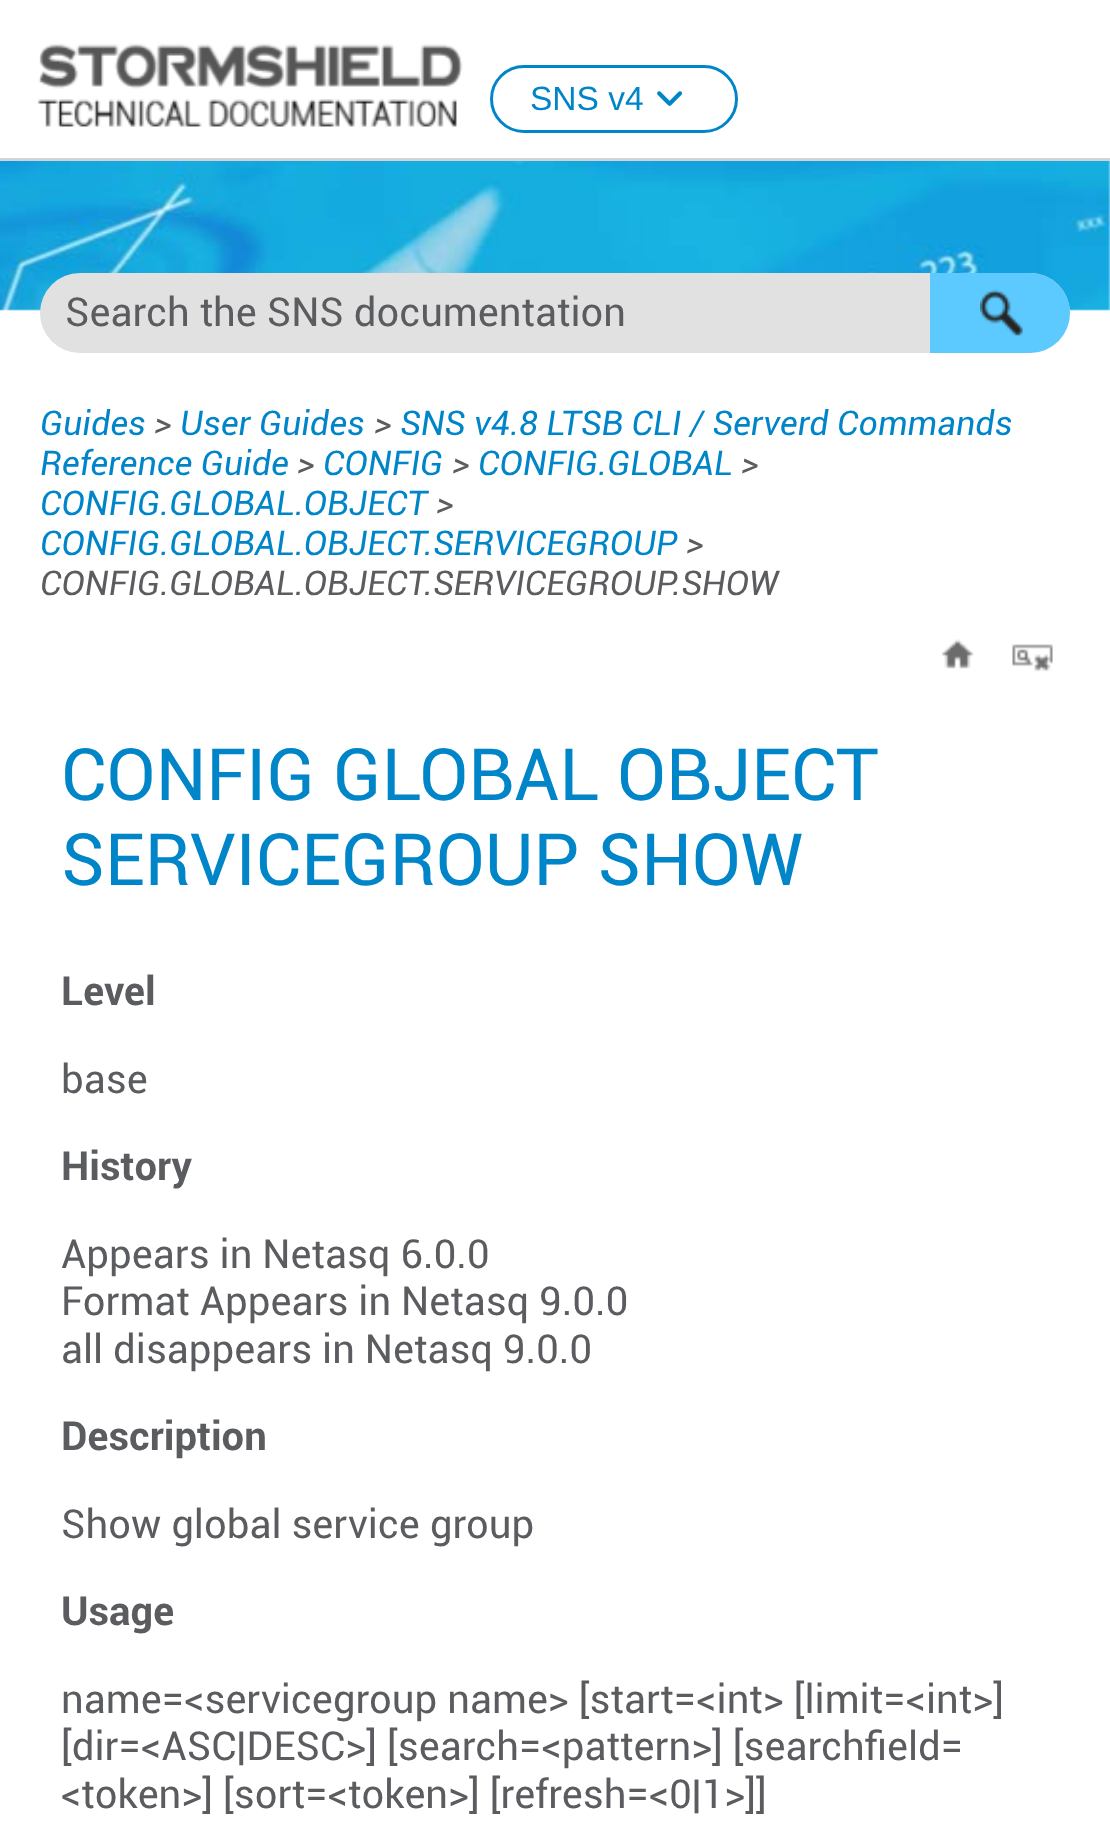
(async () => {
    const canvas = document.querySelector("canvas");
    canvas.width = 1110;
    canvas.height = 1823;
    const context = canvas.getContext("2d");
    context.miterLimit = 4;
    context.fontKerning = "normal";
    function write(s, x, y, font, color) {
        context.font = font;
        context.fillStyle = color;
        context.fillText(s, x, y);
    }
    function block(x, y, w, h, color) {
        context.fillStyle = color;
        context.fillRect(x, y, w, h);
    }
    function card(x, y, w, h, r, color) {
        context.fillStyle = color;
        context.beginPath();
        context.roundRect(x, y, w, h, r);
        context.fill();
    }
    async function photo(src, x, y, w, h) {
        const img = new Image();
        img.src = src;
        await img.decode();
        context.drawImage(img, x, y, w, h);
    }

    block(0, 0, 1110, 1823, "rgb(255, 255, 255)");
    block(0, 158, 1110, 3, "rgb(211, 211, 211)");
    await photo("media/1.png", 37, 43, 426, 84);
    await photo("media/2.png", 0, 161, 1110, 150);
    context.beginPath();
    context.roundRect(491.5, 66.5, 245, 65, 32.5);
    context.strokeStyle = "rgb(0, 133, 201)";
    context.lineWidth = 3;
    context.stroke();
    write("SNS v4", 530, 110, "33.5px Liberation Sans", "rgb(0, 133, 201)");
    await photo("media/3.png", 657, 91, 26, 15);
    card(40, 273, 1030, 80, 40, "rgb(225, 225, 225)");
    write("Search the SNS documentation", 65, 326, "40px Roboto", "rgb(91, 92, 95)");
    context.fillStyle = "rgb(92, 202, 255)";
    context.beginPath();
    context.roundRect(930, 273, 140, 80, [0, 40, 40, 0]);
    context.fill();
    await photo("media/4.png", 980, 289, 43, 47);
    write("Guides", 40, 435, "italic 34px Roboto", "rgb(0, 133, 201)");
    write(">", 154, 435, "italic 34px Roboto", "rgb(91, 92, 95)");
    write("User Guides", 180, 435, "italic 34px Roboto", "rgb(0, 133, 201)");
    write(">", 374, 435, "italic 34px Roboto", "rgb(91, 92, 95)");
    write("SNS v4.8 LTSB CLI / Serverd Commands", 400, 435, "italic 34px Roboto", "rgb(0, 133, 201)");
    write("Reference Guide", 40, 475, "italic 34px Roboto", "rgb(0, 133, 201)");
    write(">", 297, 475, "italic 34px Roboto", "rgb(91, 92, 95)");
    write("CONFIG", 323, 475, "italic 34px Roboto", "rgb(0, 133, 201)");
    write(">", 452, 475, "italic 34px Roboto", "rgb(91, 92, 95)");
    write("CONFIG.GLOBAL", 478, 475, "italic 34px Roboto", "rgb(0, 133, 201)");
    write(">", 741, 475, "italic 34px Roboto", "rgb(91, 92, 95)");
    write("CONFIG.GLOBAL.OBJECT", 40, 515, "italic 34px Roboto", "rgb(0, 133, 201)");
    write(">", 436, 515, "italic 34px Roboto", "rgb(91, 92, 95)");
    write("CONFIG.GLOBAL.OBJECT.SERVICEGROUP", 40, 555, "italic 34px Roboto", "rgb(0, 133, 201)");
    write(">", 686, 555, "italic 34px Roboto", "rgb(91, 92, 95)");
    write("CONFIG.GLOBAL.OBJECT.SERVICEGROUP.SHOW", 40, 595, "italic 34px Roboto", "rgb(91, 92, 95)");
    await photo("media/5.png", 941, 639, 33, 30);
    await photo("media/6.png", 1012, 644, 41, 28);
    write("CONFIG GLOBAL OBJECT", 61, 800, "72px Roboto", "rgb(0, 133, 201)");
    write("SERVICEGROUP SHOW", 61, 885, "72px Roboto", "rgb(0, 133, 201)");
    write("Level", 61, 1005, "bold 40px Roboto", "rgb(91, 92, 95)");
    write("base", 61, 1093, "40px Roboto", "rgb(91, 92, 95)");
    write("History", 61, 1180, "bold 40px Roboto", "rgb(91, 92, 95)");
    write("Appears in Netasq 6.0.0", 61, 1268, "40px Roboto", "rgb(91, 92, 95)");
    write("Format Appears in Netasq 9.0.0", 61, 1315, "40px Roboto", "rgb(91, 92, 95)");
    write("all disappears in Netasq 9.0.0", 61, 1363, "40px Roboto", "rgb(91, 92, 95)");
    write("Description", 61, 1450, "bold 40px Roboto", "rgb(91, 92, 95)");
    write("Show global service group", 61, 1538, "40px Roboto", "rgb(91, 92, 95)");
    write("Usage", 61, 1625, "bold 40px Roboto", "rgb(91, 92, 95)");
    write("name=<servicegroup name> [start=<int> [limit=<int>]", 61, 1713, "40px Roboto", "rgb(91, 92, 95)");
    write("[dir=<ASC|DESC>] [search=<pattern>] [searchfield=", 61, 1760, "40px Roboto", "rgb(91, 92, 95)");
    write("<token>] [sort=<token>] [refresh=<0|1>]]", 61, 1808, "40px Roboto", "rgb(91, 92, 95)");
})();
